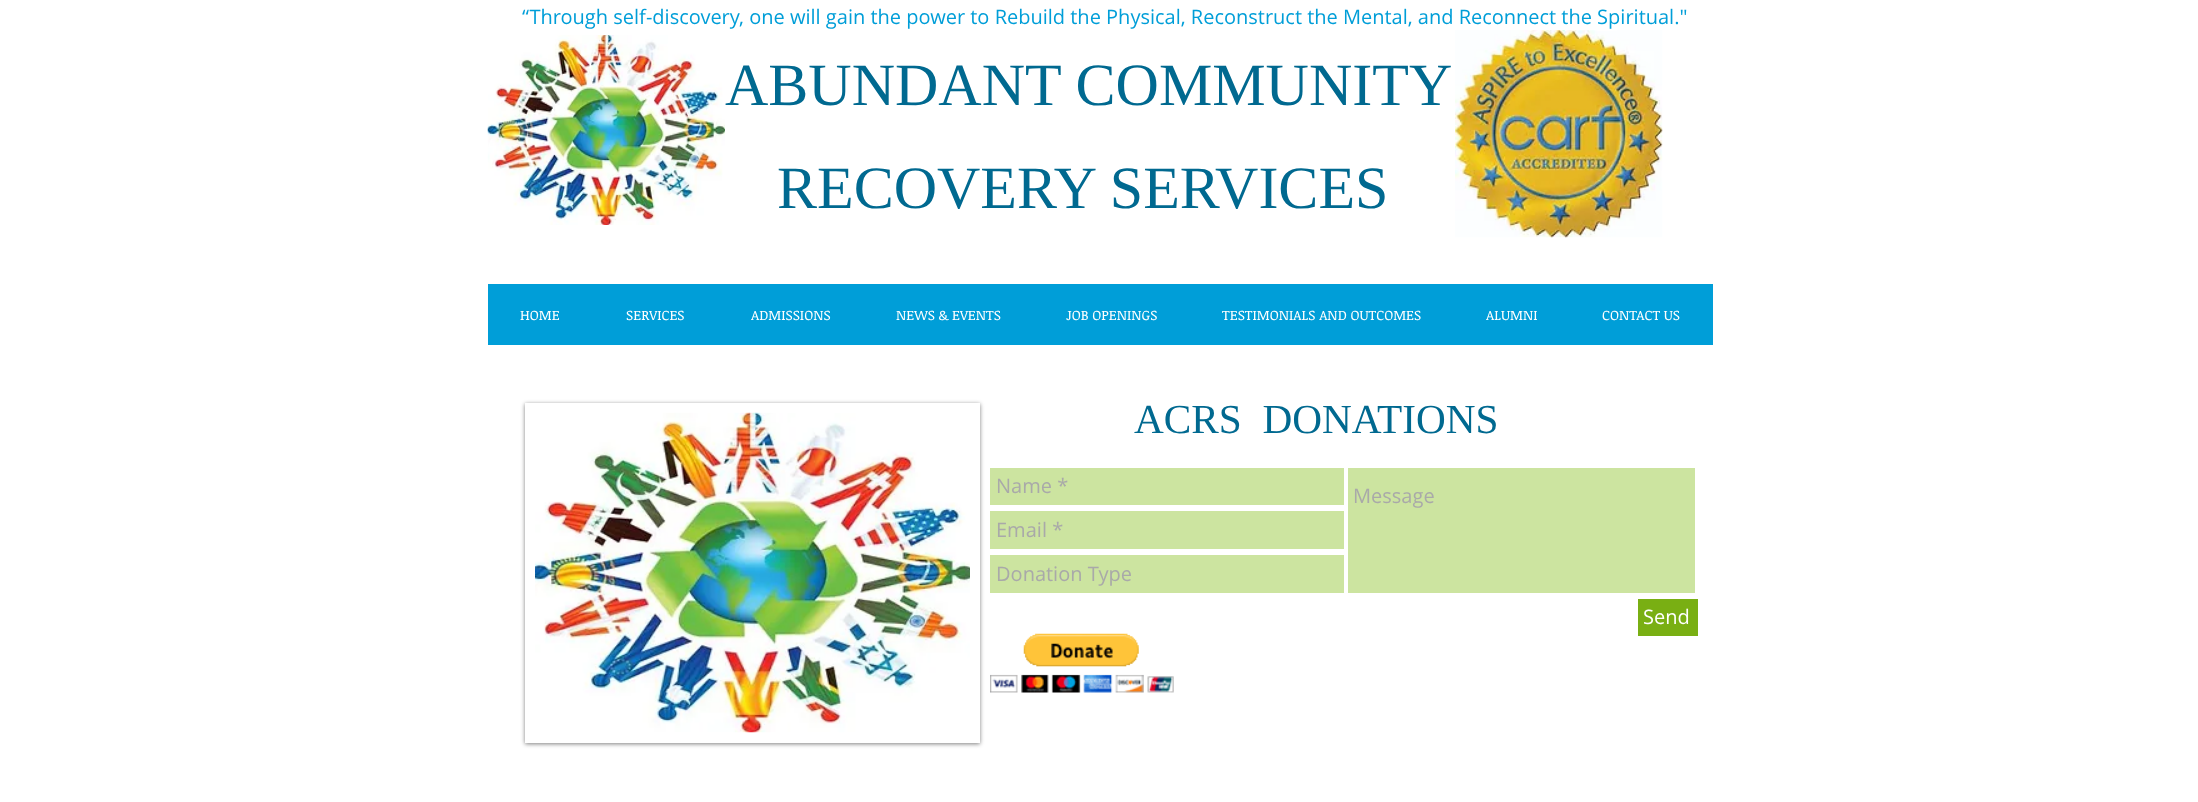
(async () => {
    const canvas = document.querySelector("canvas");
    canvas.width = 2198;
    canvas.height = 802;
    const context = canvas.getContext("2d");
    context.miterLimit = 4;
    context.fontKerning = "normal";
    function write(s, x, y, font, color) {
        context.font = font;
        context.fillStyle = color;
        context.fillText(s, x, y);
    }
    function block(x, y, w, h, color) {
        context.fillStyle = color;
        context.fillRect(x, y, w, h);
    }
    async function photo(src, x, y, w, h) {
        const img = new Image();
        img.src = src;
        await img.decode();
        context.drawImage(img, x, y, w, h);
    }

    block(0, 0, 2198, 802, "rgb(255, 255, 255)");
    write("“Through self-discovery, one will gain the power to Rebuild the Physical, Reconstruct the Mental, and Reconnect the Spiritual.\"", 522, 24, "20px Open Sans", "rgb(0, 158, 216)");
    await photo("media/1.png", 487, 35, 238, 190);
    write("ABUNDANT COMMUNITY", 725, 105, "60px Liberation Serif", "rgb(0, 105, 144)");
    await photo("media/2.png", 1455, 30, 208, 208);
    write("RECOVERY SERVICES", 777, 208, "60px Liberation Serif", "rgb(0, 105, 144)");
    block(488, 284, 1225, 61, "rgb(0, 158, 216)");
    write("HOME", 520, 320, "13.75px Noticia Text", "rgb(255, 255, 255)");
    write("SERVICES", 626, 320, "13.75px Noticia Text", "rgb(255, 255, 255)");
    write("ADMISSIONS", 751, 320, "13.75px Noticia Text", "rgb(255, 255, 255)");
    write("NEWS & EVENTS", 896, 320, "13.75px Noticia Text", "rgb(255, 255, 255)");
    write("JOB OPENINGS", 1066, 320, "13.75px Noticia Text", "rgb(255, 255, 255)");
    write("TESTIMONIALS AND OUTCOMES", 1222, 320, "13.75px Noticia Text", "rgb(255, 255, 255)");
    write("ALUMNI", 1486, 320, "13.75px Noticia Text", "rgb(255, 255, 255)");
    write("CONTACT US", 1602, 320, "13.75px Noticia Text", "rgb(255, 255, 255)");
    context.fillStyle = "rgba(0, 0, 0, 0.5)";
    context.filter = "blur(2px)";
    context.beginPath();
    context.rect(525, 404, 455, 340);
    context.fill();
    context.filter = "none";
    block(525, 403, 455, 340, "rgb(255, 255, 255)");
    await photo("media/3.png", 535, 412, 435, 321);
    write("ACRS  DONATIONS", 1134, 433, "41.25px Liberation Serif", "rgb(0, 105, 144)");
    block(990, 468, 354, 37, "rgb(204, 228, 160)");
    write("Name *", 996, 493, "20px Open Sans", "rgb(169, 169, 169)");
    block(1348, 468, 347, 125, "rgb(204, 228, 160)");
    write("Message", 1353, 503, "20px Open Sans", "rgb(169, 169, 169)");
    block(990, 511, 354, 38, "rgb(204, 228, 160)");
    write("Email *", 996, 537, "20px Open Sans", "rgb(169, 169, 169)");
    block(990, 555, 354, 38, "rgb(204, 228, 160)");
    write("Donation Type", 996, 581, "20px Open Sans", "rgb(169, 169, 169)");
    block(1638, 599, 60, 37, "rgb(121, 175, 19)");
    write("Send", 1643, 624, "20px Open Sans", "rgb(255, 255, 255)");
    await photo("media/4.png", 990, 633, 184, 60);
})();
